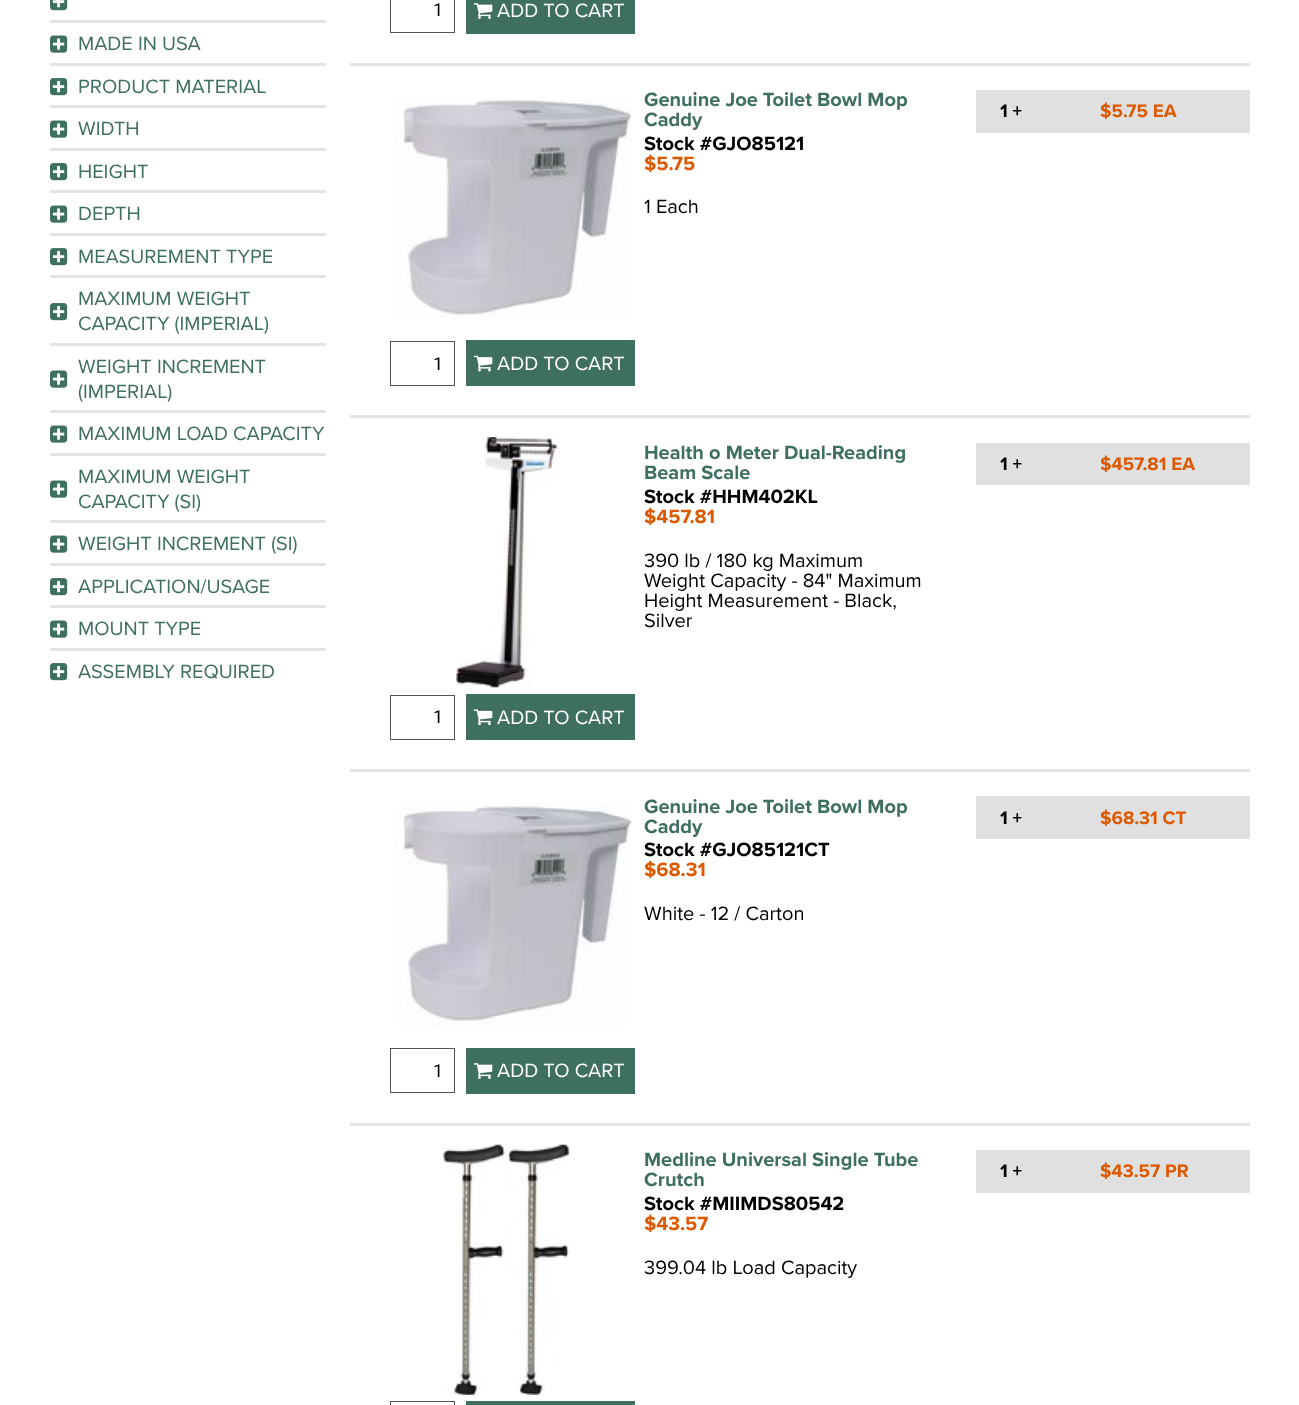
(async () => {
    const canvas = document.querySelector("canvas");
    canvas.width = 1299;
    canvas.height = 1405;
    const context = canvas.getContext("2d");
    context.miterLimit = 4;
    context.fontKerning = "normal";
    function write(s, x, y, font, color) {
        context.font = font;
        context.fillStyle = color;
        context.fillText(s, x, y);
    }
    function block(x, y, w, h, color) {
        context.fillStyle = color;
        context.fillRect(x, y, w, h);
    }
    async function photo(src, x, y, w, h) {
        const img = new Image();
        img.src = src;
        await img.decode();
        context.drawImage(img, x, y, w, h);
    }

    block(0, 0, 1299, 1405, "rgb(255, 255, 255)");
    block(50, 20, 276, 3, "rgb(228, 228, 228)");
    await photo("media/1.png", 50, 0, 18, 11);
    block(50, 63, 276, 3, "rgb(228, 228, 228)");
    await photo("media/2.png", 50, 35, 18, 18);
    write("MADE IN USA", 78, 50, "20px Proxima Nova", "rgb(63, 111, 97)");
    block(50, 105, 276, 3, "rgb(228, 228, 228)");
    await photo("media/3.png", 50, 78, 18, 18);
    write("PRODUCT MATERIAL", 78, 93, "20px Proxima Nova", "rgb(63, 111, 97)");
    block(50, 148, 276, 3, "rgb(228, 228, 228)");
    await photo("media/2.png", 50, 120, 18, 18);
    write("WIDTH", 78, 135, "20px Proxima Nova", "rgb(63, 111, 97)");
    block(50, 190, 276, 3, "rgb(228, 228, 228)");
    await photo("media/3.png", 50, 163, 18, 18);
    write("HEIGHT", 78, 178, "20px Proxima Nova", "rgb(63, 111, 97)");
    block(50, 233, 276, 3, "rgb(228, 228, 228)");
    await photo("media/2.png", 50, 205, 18, 18);
    write("DEPTH", 78, 220, "20px Proxima Nova", "rgb(63, 111, 97)");
    block(50, 275, 276, 3, "rgb(228, 228, 228)");
    await photo("media/3.png", 50, 248, 18, 18);
    write("MEASUREMENT TYPE", 78, 263, "20px Proxima Nova", "rgb(63, 111, 97)");
    block(50, 343, 276, 3, "rgb(228, 228, 228)");
    write("MAXIMUM WEIGHT", 78, 305, "20px Proxima Nova", "rgb(63, 111, 97)");
    await photo("media/3.png", 50, 303, 18, 18);
    write("CAPACITY (IMPERIAL)", 78, 330, "20px Proxima Nova", "rgb(63, 111, 97)");
    block(50, 410, 276, 3, "rgb(228, 228, 228)");
    write("WEIGHT INCREMENT", 78, 373, "20px Proxima Nova", "rgb(63, 111, 97)");
    await photo("media/2.png", 50, 370, 18, 18);
    write("(IMPERIAL)", 78, 398, "20px Proxima Nova", "rgb(63, 111, 97)");
    block(50, 453, 276, 3, "rgb(228, 228, 228)");
    await photo("media/2.png", 50, 425, 18, 18);
    write("MAXIMUM LOAD CAPACITY", 78, 440, "20px Proxima Nova", "rgb(63, 111, 97)");
    block(50, 520, 276, 3, "rgb(228, 228, 228)");
    write("MAXIMUM WEIGHT", 78, 483, "20px Proxima Nova", "rgb(63, 111, 97)");
    await photo("media/2.png", 50, 480, 18, 18);
    write("CAPACITY (SI)", 78, 508, "20px Proxima Nova", "rgb(63, 111, 97)");
    block(50, 563, 276, 3, "rgb(228, 228, 228)");
    await photo("media/2.png", 50, 535, 18, 18);
    write("WEIGHT INCREMENT (SI)", 78, 550, "20px Proxima Nova", "rgb(63, 111, 97)");
    block(50, 605, 276, 3, "rgb(228, 228, 228)");
    await photo("media/3.png", 50, 578, 18, 18);
    write("APPLICATION/USAGE", 78, 593, "20px Proxima Nova", "rgb(63, 111, 97)");
    block(50, 648, 276, 3, "rgb(228, 228, 228)");
    await photo("media/2.png", 50, 620, 18, 18);
    write("MOUNT TYPE", 78, 635, "20px Proxima Nova", "rgb(63, 111, 97)");
    await photo("media/3.png", 50, 663, 18, 18);
    write("ASSEMBLY REQUIRED", 78, 678, "20px Proxima Nova", "rgb(63, 111, 97)");
    block(350, 63, 900, 3, "rgb(228, 228, 228)");
    context.strokeStyle = "rgb(85, 85, 85)";
    context.strokeRect(390.5, -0.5, 64, 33);
    write("1", 433, 16, "18px Roboto", "rgb(0, 0, 0)");
    block(466, 0, 169, 34, "rgb(63, 111, 97)");
    await photo("media/4.png", 473, 3, 20, 16);
    write("ADD TO CART", 497, 17, "20px Proxima Nova", "rgb(255, 255, 255)");
    block(350, 415, 900, 3, "rgb(228, 228, 228)");
    write("Genuine Joe Toilet Bowl Mop", 644, 106, "bold 20px Proxima Nova", "rgb(63, 111, 97)");
    write("Caddy", 644, 126, "bold 20px Proxima Nova", "rgb(63, 111, 97)");
    write("Stock #GJO85121", 644, 150, "bold 20px Proxima Nova", "rgb(0, 0, 0)");
    write("$5.75", 644, 170, "bold 20px Proxima Nova", "rgb(221, 89, 0)");
    write("1 Each", 644, 213, "20px Proxima Nova", "rgb(0, 0, 0)");
    block(976, 90, 274, 43, "rgb(224, 224, 224)");
    write("1 +", 1000, 117, "bold 18.75px Proxima Nova", "rgb(0, 0, 0)");
    write("$5.75 EA", 1100, 117, "bold 18.75px Proxima Nova", "rgb(221, 89, 0)");
    await photo("media/5.png", 394, 97, 238, 222);
    context.strokeRect(390.5, 341.5, 64, 44);
    write("1", 433, 370, "18px Roboto", "rgb(0, 0, 0)");
    block(466, 340, 169, 46, "rgb(63, 111, 97)");
    await photo("media/6.png", 473, 355, 20, 17);
    write("ADD TO CART", 497, 370, "20px Proxima Nova", "rgb(255, 255, 255)");
    block(350, 769, 900, 3, "rgb(228, 228, 228)");
    write("Health o Meter Dual-Reading", 644, 459, "bold 20px Proxima Nova", "rgb(63, 111, 97)");
    write("Beam Scale", 644, 479, "bold 20px Proxima Nova", "rgb(63, 111, 97)");
    write("Stock #HHM402KL", 644, 503, "bold 20px Proxima Nova", "rgb(0, 0, 0)");
    write("$457.81", 644, 523, "bold 20px Proxima Nova", "rgb(221, 89, 0)");
    write("390 lb / 180 kg Maximum", 644, 567, "20px Proxima Nova", "rgb(0, 0, 0)");
    write("Weight Capacity - 84\" Maximum", 644, 587, "20px Proxima Nova", "rgb(0, 0, 0)");
    write("Height Measurement - Black,", 644, 607, "20px Proxima Nova", "rgb(0, 0, 0)");
    write("Silver", 644, 627, "20px Proxima Nova", "rgb(0, 0, 0)");
    block(976, 443, 274, 42, "rgb(224, 224, 224)");
    write("1 +", 1000, 470, "bold 18.75px Proxima Nova", "rgb(0, 0, 0)");
    write("$457.81 EA", 1100, 470, "bold 18.75px Proxima Nova", "rgb(221, 89, 0)");
    await photo("media/7.png", 456, 437, 103, 251);
    context.strokeRect(390.5, 695.5, 64, 44);
    write("1", 433, 723, "18px Roboto", "rgb(0, 0, 0)");
    block(466, 694, 169, 46, "rgb(63, 111, 97)");
    await photo("media/8.png", 473, 709, 20, 17);
    write("ADD TO CART", 497, 724, "20px Proxima Nova", "rgb(255, 255, 255)");
    block(350, 1123, 900, 3, "rgb(228, 228, 228)");
    write("Genuine Joe Toilet Bowl Mop", 644, 813, "bold 20px Proxima Nova", "rgb(63, 111, 97)");
    write("Caddy", 644, 833, "bold 20px Proxima Nova", "rgb(63, 111, 97)");
    write("Stock #GJO85121CT", 644, 856, "bold 20px Proxima Nova", "rgb(0, 0, 0)");
    write("$68.31", 644, 876, "bold 20px Proxima Nova", "rgb(221, 89, 0)");
    write("White - 12 / Carton", 644, 920, "20px Proxima Nova", "rgb(0, 0, 0)");
    block(976, 796, 274, 43, "rgb(224, 224, 224)");
    write("1 +", 1000, 824, "bold 18.75px Proxima Nova", "rgb(0, 0, 0)");
    write("$68.31 CT", 1100, 824, "bold 18.75px Proxima Nova", "rgb(221, 89, 0)");
    await photo("media/9.png", 394, 803, 238, 224);
    context.strokeRect(390.5, 1048.5, 64, 44);
    write("1", 433, 1077, "18px Roboto", "rgb(0, 0, 0)");
    block(466, 1048, 169, 46, "rgb(63, 111, 97)");
    await photo("media/4.png", 473, 1063, 20, 16);
    write("ADD TO CART", 497, 1077, "20px Proxima Nova", "rgb(255, 255, 255)");
    await photo("media/10.png", 443, 1144, 127, 251);
    context.strokeRect(390.5, 1401.5, 64, 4);
    block(466, 1401, 169, 4, "rgb(63, 111, 97)");
    write("Medline Universal Single Tube", 644, 1166, "bold 20px Proxima Nova", "rgb(63, 111, 97)");
    write("Crutch", 644, 1186, "bold 20px Proxima Nova", "rgb(63, 111, 97)");
    write("Stock #MIIMDS80542", 644, 1210, "bold 20px Proxima Nova", "rgb(0, 0, 0)");
    write("$43.57", 644, 1230, "bold 20px Proxima Nova", "rgb(221, 89, 0)");
    write("399.04 lb Load Capacity", 644, 1274, "20px Proxima Nova", "rgb(0, 0, 0)");
    block(976, 1150, 274, 43, "rgb(224, 224, 224)");
    write("1 +", 1000, 1177, "bold 18.75px Proxima Nova", "rgb(0, 0, 0)");
    write("$43.57 PR", 1100, 1177, "bold 18.75px Proxima Nova", "rgb(221, 89, 0)");
})();
